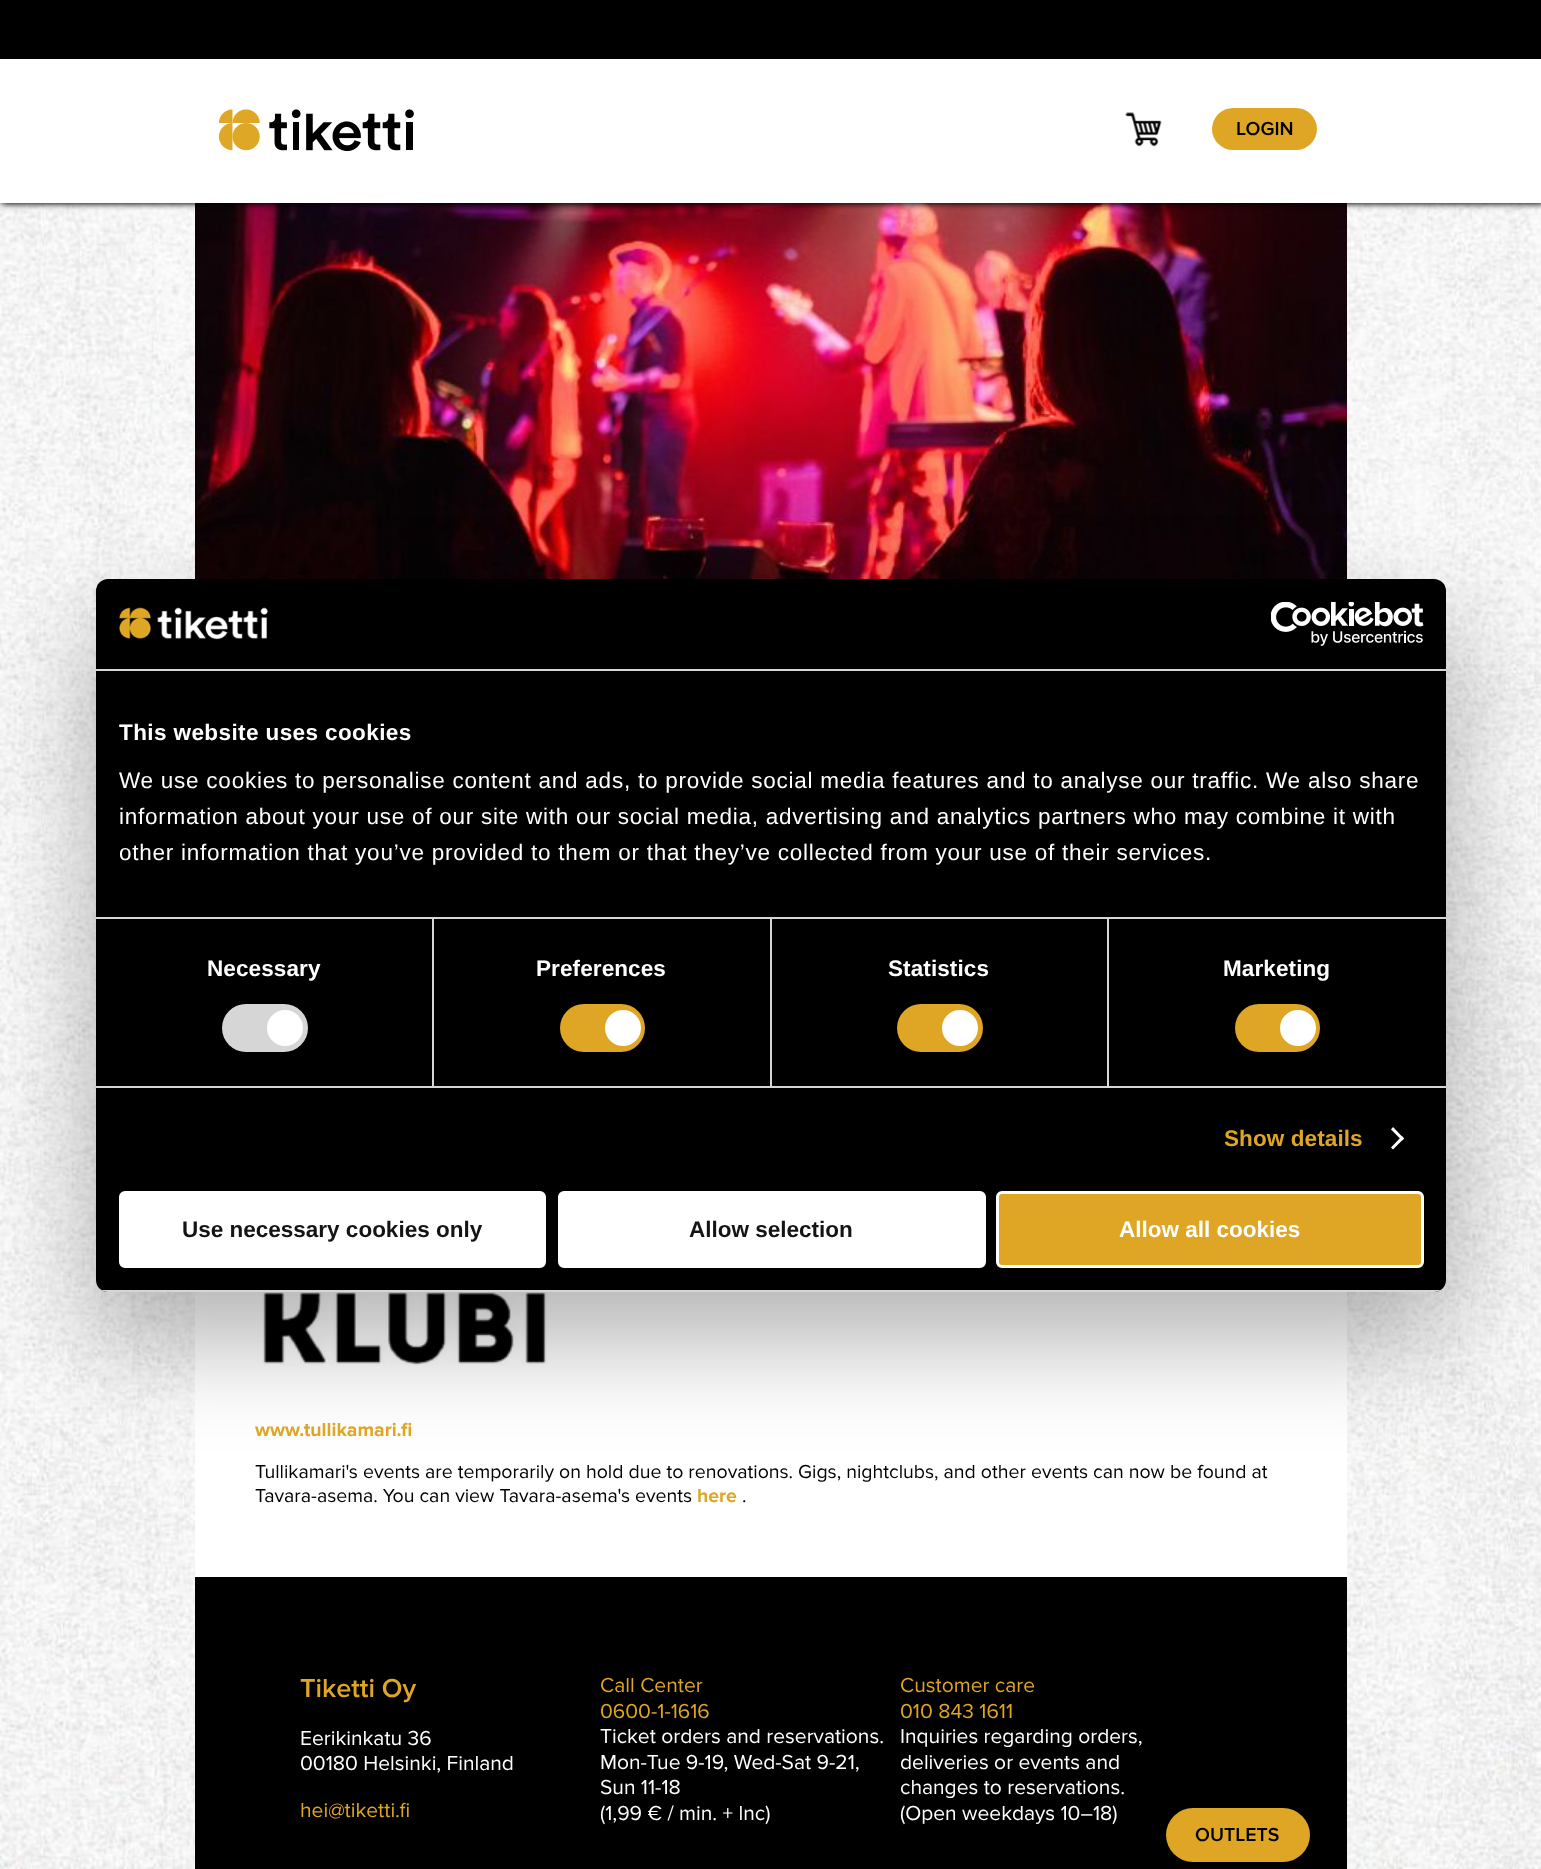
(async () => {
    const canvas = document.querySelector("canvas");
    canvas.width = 1541;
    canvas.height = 1869;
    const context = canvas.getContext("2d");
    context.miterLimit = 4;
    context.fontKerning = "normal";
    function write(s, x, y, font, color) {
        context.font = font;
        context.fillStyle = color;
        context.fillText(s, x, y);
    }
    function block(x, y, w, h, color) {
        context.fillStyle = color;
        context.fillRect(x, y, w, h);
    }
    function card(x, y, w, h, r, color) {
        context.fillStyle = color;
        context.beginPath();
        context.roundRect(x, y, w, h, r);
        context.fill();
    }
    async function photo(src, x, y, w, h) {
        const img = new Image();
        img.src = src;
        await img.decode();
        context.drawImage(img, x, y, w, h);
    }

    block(0, 0, 1541, 1869, "rgb(255, 255, 255)");
    await photo("media/1.png", 0, 203, 1541, 1666);
    await photo("media/6.png", 195, 203, 1152, 376);
    context.fillStyle = "rgb(0, 0, 0)";
    context.filter = "blur(3px)";
    context.beginPath();
    context.rect(2, 2, 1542, 202);
    context.fill();
    context.filter = "none";
    block(0, 0, 1541, 59, "rgb(0, 0, 0)");
    block(0, 59, 1541, 144, "rgb(255, 255, 255)");
    await photo("media/2.png", 218, 109, 196, 43);
    await photo("media/3.png", 1125, 112, 37, 35);
    card(1212, 108, 105, 42, 21, "rgb(223, 166, 38)");
    write("LOGIN", 1236, 135, "600 19.5px Proxima Nova", "rgb(0, 0, 0)");
    block(195, 1292, 1152, 285, "rgb(255, 255, 255)");
    await photo("media/7.png", 262, 1292, 285, 74);
    context.fillStyle = "rgba(0, 0, 0, 0.3)";
    context.filter = "blur(51px)";
    context.beginPath();
    context.roundRect(96, 627, 1350, 713, 12);
    context.fill();
    context.filter = "none";
    card(96, 579, 1350, 713, 12, "rgb(0, 0, 0)");
    block(96, 669, 1350, 2, "rgb(214, 214, 214)");
    await photo("media/4.png", 119, 607, 150, 33);
    await photo("media/5.png", 1271, 602, 153, 44);
    block(432, 918, 2, 168, "rgb(214, 214, 214)");
    block(770, 918, 2, 168, "rgb(214, 214, 214)");
    block(1107, 918, 2, 168, "rgb(214, 214, 214)");
    block(96, 917, 1350, 2, "rgb(214, 214, 214)");
    context.letterSpacing = "0.4px";
    write("This website uses cookies", 119, 740, "bold 22.5px Liberation Sans", "rgb(255, 255, 255)");
    context.letterSpacing = "0.75px";
    write("We use cookies to personalise content and ads, to provide social media features and to analyse our traffic. We also share", 119, 788, "22.5px Liberation Sans", "rgb(255, 255, 255)");
    write("information about your use of our site with our social media, advertising and analytics partners who may combine it with", 119, 824, "22.5px Liberation Sans", "rgb(255, 255, 255)");
    write("other information that you’ve provided to them or that they’ve collected from your use of their services.", 119, 860, "22.5px Liberation Sans", "rgb(255, 255, 255)");
    block(96, 1086, 1350, 2, "rgb(214, 214, 214)");
    context.letterSpacing = "0.1px";
    write("Necessary", 207, 976, "bold 22.5px Liberation Sans", "rgb(255, 255, 255)");
    card(222, 1004, 86, 48, 24, "rgb(214, 214, 214)");
    context.fillStyle = "rgb(255, 255, 255)";
    context.beginPath();
    context.arc(285, 1028, 18, 0, Math.PI * 2);
    context.fill();
    write("Preferences", 536, 976, "bold 22.5px Liberation Sans", "rgb(255, 255, 255)");
    card(560, 1004, 85, 48, 24, "rgb(223, 166, 38)");
    context.fillStyle = "rgb(255, 255, 255)";
    context.beginPath();
    context.arc(623, 1028, 18, 0, Math.PI * 2);
    context.fill();
    write("Statistics", 888, 976, "bold 22.5px Liberation Sans", "rgb(255, 255, 255)");
    card(897, 1004, 86, 48, 24, "rgb(223, 166, 38)");
    context.fillStyle = "rgb(255, 255, 255)";
    context.beginPath();
    context.arc(960, 1028, 18, 0, Math.PI * 2);
    context.fill();
    write("Marketing", 1223, 976, "bold 22.5px Liberation Sans", "rgb(255, 255, 255)");
    card(1235, 1004, 85, 48, 24, "rgb(223, 166, 38)");
    context.fillStyle = "rgb(255, 255, 255)";
    context.beginPath();
    context.arc(1298, 1028, 18, 0, Math.PI * 2);
    context.fill();
    write("Show details", 1224, 1146, "bold 22.5px Liberation Sans", "rgb(223, 166, 38)");
    context.fillStyle = "rgb(255, 255, 255)";
    context.beginPath();
    context.moveTo(1393, 1127);
    context.lineTo(1404, 1138.5);
    context.lineTo(1402, 1140.5);
    context.lineTo(1391, 1129.5);
    context.closePath();
    context.fill();
    context.beginPath();
    context.moveTo(1402, 1136);
    context.lineTo(1404, 1138.5);
    context.lineTo(1393, 1149.5);
    context.lineTo(1391, 1147.5);
    context.closePath();
    context.fill();
    context.save();
    context.beginPath();
    context.roundRect(96, 579, 1350, 713, 12);
    context.clip();
    block(96, 1290, 1350, 2, "rgb(214, 214, 214)");
    context.restore();
    context.beginPath();
    context.roundRect(120.5, 1192.5, 424, 74, 4.5);
    context.fill();
    context.strokeStyle = "rgb(255, 255, 255)";
    context.lineWidth = 3;
    context.stroke();
    context.letterSpacing = "0px";
    write("Use necessary cookies only", 182, 1237, "bold 22.5px Liberation Sans", "rgb(20, 20, 20)");
    context.fillStyle = "rgb(255, 255, 255)";
    context.beginPath();
    context.roundRect(559.5, 1192.5, 425, 74, 4.5);
    context.fill();
    context.stroke();
    write("Allow selection", 689, 1237, "bold 22.5px Liberation Sans", "rgb(20, 20, 20)");
    context.fillStyle = "rgb(223, 166, 38)";
    context.beginPath();
    context.roundRect(997.5, 1192.5, 425, 74, 4.5);
    context.fill();
    context.stroke();
    write("Allow all cookies", 1119, 1237, "bold 22.5px Liberation Sans", "rgb(255, 255, 255)");
    write("www.tullikamari.fi", 255, 1436, "bold 19.5px Proxima Nova", "rgb(223, 166, 38)");
    write("Tullikamari's events are temporarily on hold due to renovations. Gigs, nightclubs, and other events can now be found at", 255, 1478, "19.5px Proxima Nova", "rgb(0, 0, 0)");
    write("Tavara-asema. You can view Tavara-asema's events", 255, 1502, "19.5px Proxima Nova", "rgb(0, 0, 0)");
    write("here", 697, 1502, "bold 19.5px Proxima Nova", "rgb(223, 166, 38)");
    write(".", 742, 1502, "19.5px Proxima Nova", "rgb(0, 0, 0)");
    block(195, 1577, 1152, 292, "rgb(0, 0, 0)");
    write("Tiketti Oy", 300, 1697, "600 27px Proxima Nova", "rgb(223, 166, 38)");
    write("Eerikinkatu 36", 300, 1745, "21px Proxima Nova", "rgb(255, 255, 255)");
    write("00180 Helsinki, Finland", 300, 1770, "21px Proxima Nova", "rgb(255, 255, 255)");
    write("hei@tiketti.fi", 300, 1817, "21px Proxima Nova", "rgb(223, 166, 38)");
    write("Call Center", 600, 1692, "21px Proxima Nova", "rgb(223, 166, 38)");
    write("0600-1-1616", 600, 1718, "21px Proxima Nova", "rgb(223, 166, 38)");
    write("Ticket orders and reservations.", 600, 1743, "21px Proxima Nova", "rgb(255, 255, 255)");
    write("Mon-Tue 9-19, Wed-Sat 9-21,", 600, 1769, "21px Proxima Nova", "rgb(255, 255, 255)");
    write("Sun 11-18", 600, 1794, "21px Proxima Nova", "rgb(255, 255, 255)");
    write("(1,99 € / min. + lnc)", 600, 1820, "21px Proxima Nova", "rgb(255, 255, 255)");
    write("Customer care", 900, 1692, "21px Proxima Nova", "rgb(223, 166, 38)");
    write("010 843 1611", 900, 1718, "21px Proxima Nova", "rgb(223, 166, 38)");
    write("Inquiries regarding orders,", 900, 1743, "21px Proxima Nova", "rgb(255, 255, 255)");
    write("deliveries or events and", 900, 1769, "21px Proxima Nova", "rgb(255, 255, 255)");
    write("changes to reservations.", 900, 1794, "21px Proxima Nova", "rgb(255, 255, 255)");
    write("(Open weekdays 10–18)", 900, 1820, "21px Proxima Nova", "rgb(255, 255, 255)");
    card(1166, 1808, 144, 54, 27, "rgb(223, 166, 38)");
    write("OUTLETS", 1195, 1841, "600 19.5px Proxima Nova", "rgb(0, 0, 0)");
})();
